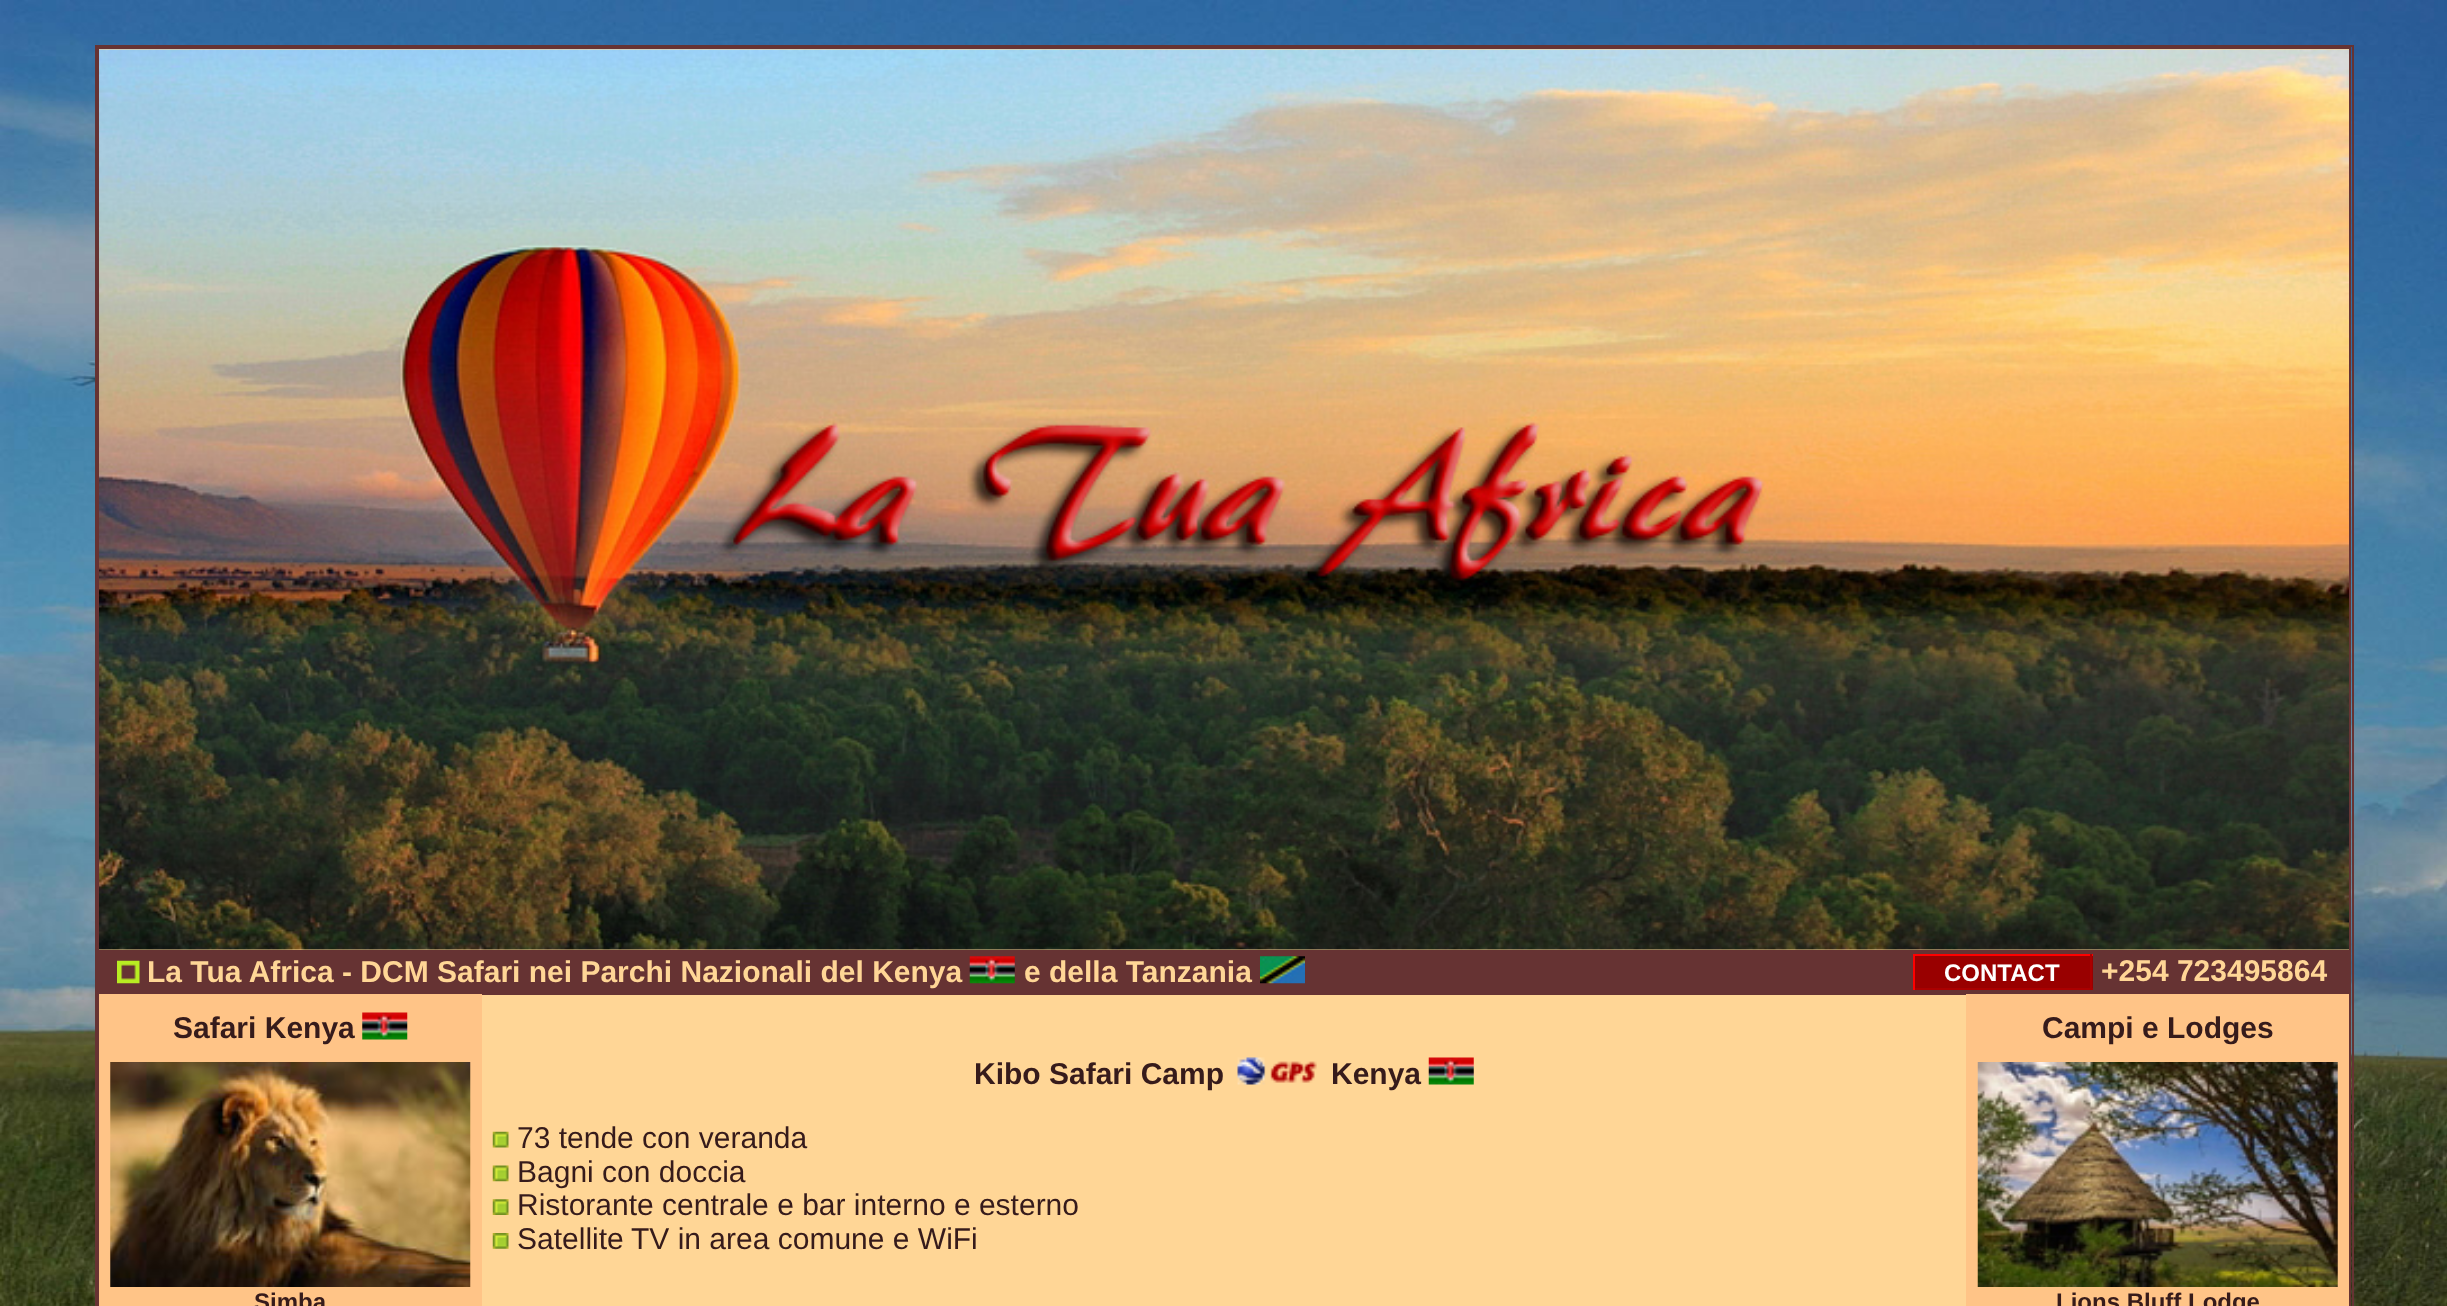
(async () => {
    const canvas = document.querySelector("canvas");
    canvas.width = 2447;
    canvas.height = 1306;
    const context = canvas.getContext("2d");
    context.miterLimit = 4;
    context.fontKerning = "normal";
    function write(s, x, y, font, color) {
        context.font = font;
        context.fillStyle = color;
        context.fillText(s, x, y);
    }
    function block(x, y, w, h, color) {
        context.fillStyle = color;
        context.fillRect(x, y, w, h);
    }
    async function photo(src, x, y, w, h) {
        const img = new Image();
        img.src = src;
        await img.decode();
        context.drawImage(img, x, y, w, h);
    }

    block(0, 0, 2447, 1306, "rgb(255, 255, 255)");
    await photo("media/1.png", 0, 0, 2447, 1306);
    context.strokeStyle = "rgb(102, 51, 51)";
    context.lineWidth = 2;
    context.strokeRect(96, 46, 2257, 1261);
    context.fillStyle = "rgb(255, 214, 150)";
    context.beginPath();
    context.rect(98, 48, 2252, 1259);
    context.fill();
    context.stroke();
    await photo("media/2.png", 99, 49, 2250, 901);
    block(99, 950, 2250, 45, "rgb(102, 51, 51)");
    await photo("media/3.png", 117, 960, 23, 24);
    write("La Tua Africa - DCM Safari nei Parchi Nazionali del Kenya", 147, 982, "bold 30px Liberation Sans", "rgb(255, 214, 150)");
    await photo("media/4.png", 969, 956, 46, 28);
    write("e della Tanzania", 1024, 982, "bold 30px Liberation Sans", "rgb(255, 214, 150)");
    await photo("media/5.png", 1260, 956, 45, 28);
    block(1915, 956, 178, 32, "rgb(153, 0, 0)");
    block(1913, 954, 180, 2, "rgb(255, 0, 0)");
    block(2090, 954, 2, 36, "rgb(170, 0, 0)");
    block(1913, 988, 180, 2, "rgb(170, 0, 0)");
    block(1913, 954, 2, 36, "rgb(255, 0, 0)");
    write("CONTACT", 1944, 981, "bold 24px Liberation Sans", "rgb(255, 255, 255)");
    write("+254 723495864", 2101, 981, "bold 30px Liberation Sans", "rgb(255, 214, 150)");
    block(99, 994, 383, 312, "rgb(255, 196, 135)");
    write("Safari Kenya", 173, 1038, "bold 30px Liberation Sans", "rgb(54, 27, 27)");
    await photo("media/6.png", 362, 1012, 46, 28);
    await photo("media/7.png", 110, 1062, 361, 225);
    write("Simba", 254, 1310, "bold 24px Liberation Sans", "rgb(54, 27, 27)");
    write("Kibo Safari Camp", 974, 1084, "bold 30px Liberation Sans", "rgb(54, 27, 27)");
    await photo("media/8.png", 1237, 1057, 80, 28);
    write("Kenya", 1331, 1084, "bold 30px Liberation Sans", "rgb(54, 27, 27)");
    await photo("media/9.png", 1428, 1057, 46, 28);
    await photo("media/10.png", 492, 1131, 17, 17);
    write("73 tende con veranda", 517, 1148, "30px Liberation Sans", "rgb(54, 27, 27)");
    await photo("media/11.png", 492, 1165, 17, 17);
    write("Bagni con doccia", 517, 1182, "30px Liberation Sans", "rgb(54, 27, 27)");
    await photo("media/12.png", 492, 1199, 17, 16);
    write("Ristorante centrale e bar interno e esterno", 517, 1215, "30px Liberation Sans", "rgb(54, 27, 27)");
    await photo("media/13.png", 492, 1233, 17, 16);
    write("Satellite", 517, 1249, "30px Liberation Sans", "rgb(54, 27, 27)");
    write("TV in area comune e WiFi", 631, 1249, "30px Liberation Sans", "rgb(54, 27, 27)");
    block(1966, 994, 383, 312, "rgb(255, 196, 135)");
    write("Campi e Lodges", 2042, 1038, "bold 30px Liberation Sans", "rgb(54, 27, 27)");
    await photo("media/14.png", 1977, 1062, 361, 225);
    write("Lions Bluff Lodge", 2056, 1310, "bold 24px Liberation Sans", "rgb(54, 27, 27)");
})();
